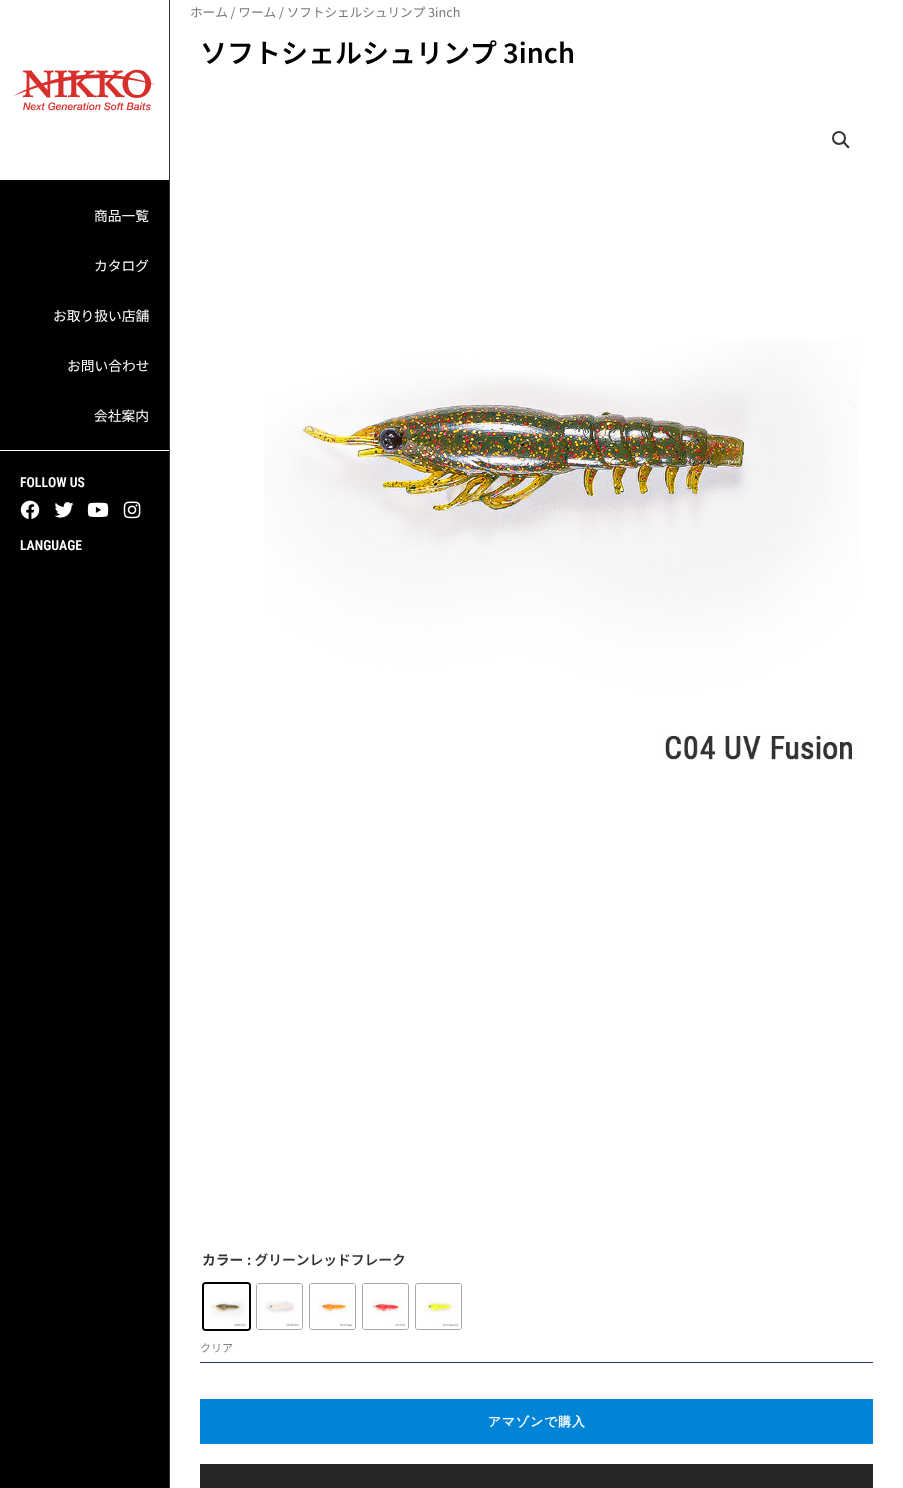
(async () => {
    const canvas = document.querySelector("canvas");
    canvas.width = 903;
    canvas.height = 1488;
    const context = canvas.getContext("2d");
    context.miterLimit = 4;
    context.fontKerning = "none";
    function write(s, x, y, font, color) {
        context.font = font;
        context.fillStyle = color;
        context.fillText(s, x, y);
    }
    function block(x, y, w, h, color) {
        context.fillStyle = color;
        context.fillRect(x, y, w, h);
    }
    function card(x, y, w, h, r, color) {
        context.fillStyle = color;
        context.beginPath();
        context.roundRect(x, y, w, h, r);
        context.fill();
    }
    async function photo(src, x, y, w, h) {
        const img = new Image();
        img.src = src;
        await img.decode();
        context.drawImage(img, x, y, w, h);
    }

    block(0, 0, 903, 1488, "rgb(255, 255, 255)");
    write("ホーム / ワーム / ソフトシェルシュリンプ 3inch", 190, 17, "12.6px Noto Sans JP", "rgb(119, 119, 119)");
    block(0, 180, 169, 1308, "rgb(0, 0, 0)");
    block(169, 0, 1, 1488, "rgb(51, 51, 51)");
    await photo("media/1.png", 13, 69, 143, 42);
    block(0, 450, 169, 1, "rgb(255, 255, 255)");
    write("商品一覧", 94, 221, "13.75px Noto Sans JP", "rgb(255, 255, 255)");
    write("カタログ", 94, 271, "13.75px Noto Sans JP", "rgb(255, 255, 255)");
    write("お取り扱い店舗", 53, 321, "13.75px Noto Sans JP", "rgb(255, 255, 255)");
    write("お問い合わせ", 67, 371, "13.75px Noto Sans JP", "rgb(255, 255, 255)");
    write("会社案内", 94, 421, "13.75px Noto Sans JP", "rgb(255, 255, 255)");
    write("FOLLOW US", 20, 487, "600 13.75px Roboto Condensed", "rgb(255, 255, 255)");
    await photo("media/2.png", 20, 500, 20, 19);
    await photo("media/3.png", 54, 502, 20, 16);
    await photo("media/4.png", 87, 502, 22, 15);
    await photo("media/5.png", 123, 501, 18, 18);
    write("LANGUAGE", 20, 550, "600 13.75px Roboto Condensed", "rgb(255, 255, 255)");
    write("ソフトシェルシュリンプ 3inch", 200, 63, "600 27px Noto Sans JP", "rgb(0, 0, 0)");
    context.beginPath();
    context.arc(839, 138, 6, 0, Math.PI * 2);
    context.strokeStyle = "rgb(51, 51, 51)";
    context.lineWidth = 2;
    context.stroke();
    context.fillStyle = "rgb(51, 51, 51)";
    context.beginPath();
    context.moveTo(843.5, 142);
    context.bezierCurveTo(844.5, 141, 846.5, 143.5, 847, 144.5);
    context.bezierCurveTo(847.5, 145, 850.5, 146.5, 849, 148);
    context.bezierCurveTo(848, 149, 846, 146.5, 845.5, 145.5);
    context.bezierCurveTo(845, 145, 842.5, 143.5, 843.5, 142);
    context.closePath();
    context.fill();
    await photo("media/6.png", 264, 339, 595, 421);
    block(200, 1362, 673, 1, "rgb(36, 54, 115)");
    write("カラー", 202, 1265, "bold 13.75px Noto Sans JP", "rgb(51, 51, 51)");
    write(": グリーンレッドフレーク", 247, 1265, "600 13.75px Noto Sans JP", "rgb(51, 51, 51)");
    context.beginPath();
    context.roundRect(203, 1283, 47, 47, 3);
    context.strokeStyle = "rgb(0, 0, 0)";
    context.stroke();
    card(204, 1284, 45, 45, 2, "rgb(255, 255, 255)");
    await photo("media/7.png", 210, 1300, 37, 27);
    context.beginPath();
    context.roundRect(256.5, 1283.5, 46, 46, 2.5);
    context.strokeStyle = "rgb(168, 168, 168)";
    context.lineWidth = 1;
    context.stroke();
    card(257, 1284, 45, 45, 2, "rgb(255, 255, 255)");
    await photo("media/8.png", 264, 1299, 36, 28);
    context.beginPath();
    context.roundRect(309.5, 1283.5, 46, 46, 2.5);
    context.stroke();
    card(310, 1284, 45, 45, 2, "rgb(255, 255, 255)");
    await photo("media/9.png", 318, 1299, 35, 28);
    context.beginPath();
    context.roundRect(362.5, 1283.5, 46, 46, 2.5);
    context.stroke();
    card(363, 1284, 45, 45, 2, "rgb(255, 255, 255)");
    await photo("media/10.png", 371, 1299, 35, 28);
    context.beginPath();
    context.roundRect(415.5, 1283.5, 46, 46, 2.5);
    context.stroke();
    card(416, 1284, 45, 45, 2, "rgb(255, 255, 255)");
    await photo("media/11.png", 424, 1299, 35, 28);
    write("クリア", 200, 1352, "11px Noto Sans JP", "rgb(133, 133, 133)");
    block(200, 1399, 673, 45, "rgb(0, 132, 214)");
    context.letterSpacing = "1px";
    write("アマゾンで購入", 488, 1426, "bold 12.75px WenQuanYi Zen Hei", "rgb(255, 255, 255)");
    block(200, 1464, 673, 24, "rgb(39, 39, 39)");
})();
